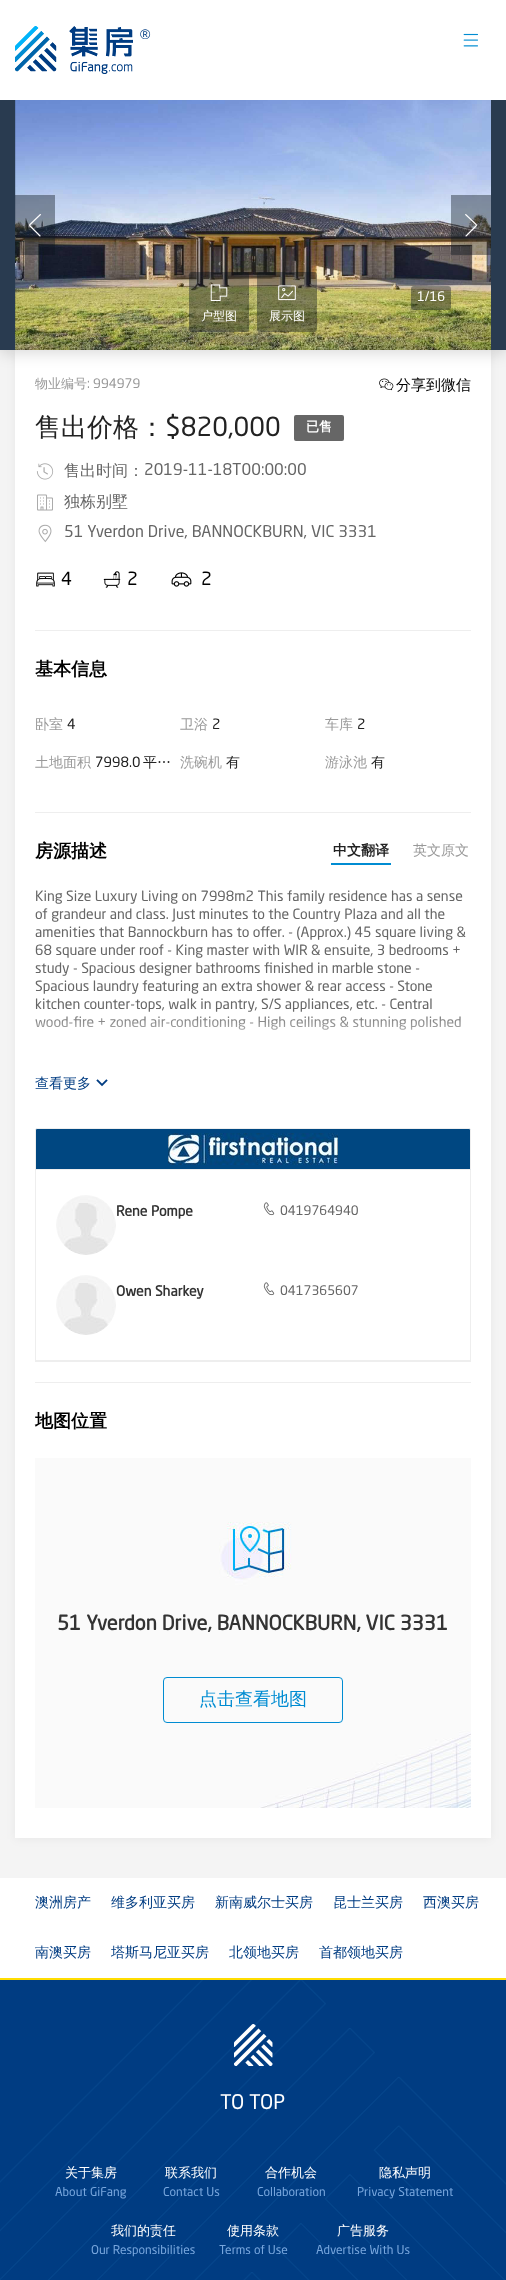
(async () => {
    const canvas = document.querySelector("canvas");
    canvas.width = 506;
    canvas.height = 2280;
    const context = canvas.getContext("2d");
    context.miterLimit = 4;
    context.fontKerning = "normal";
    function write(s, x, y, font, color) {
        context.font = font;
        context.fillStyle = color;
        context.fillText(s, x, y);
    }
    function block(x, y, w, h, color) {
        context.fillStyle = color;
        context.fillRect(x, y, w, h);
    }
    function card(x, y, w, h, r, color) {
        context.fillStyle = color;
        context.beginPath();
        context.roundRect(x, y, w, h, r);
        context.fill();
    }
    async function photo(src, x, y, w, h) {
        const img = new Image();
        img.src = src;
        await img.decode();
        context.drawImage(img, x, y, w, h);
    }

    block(0, 0, 506, 2280, "rgb(244, 244, 244)");
    context.fillStyle = "rgba(0, 0, 0, 0.05)";
    context.filter = "blur(5px)";
    context.beginPath();
    context.rect(15, 351, 476, 1488);
    context.fill();
    context.filter = "none";
    block(15, 350, 476, 1488, "rgb(255, 255, 255)");
    context.fillStyle = "rgba(0, 0, 0, 0.15)";
    context.filter = "blur(7.5px)";
    context.beginPath();
    context.rect(0, 103, 506, 250);
    context.fill();
    context.filter = "none";
    block(0, 0, 506, 100, "rgb(255, 255, 255)");
    await photo("media/1.png", 15, 26, 118, 48);
    write("®", 140, 39, "14px Liberation Sans", "rgb(0, 60, 130)");
    await photo("media/2.png", 463, 33, 15, 14);
    block(0, 100, 506, 250, "rgb(41, 59, 80)");
    await photo("media/3.png", 15, 100, 476, 250);
    block(15, 195, 40, 60, "rgba(10, 20, 30, 0.4)");
    await photo("media/4.png", 29, 214, 12, 23);
    block(451, 195, 40, 60, "rgba(10, 20, 30, 0.4)");
    await photo("media/5.png", 465, 214, 12, 23);
    card(411, 286, 40, 24, 3, "rgba(10, 20, 30, 0.4)");
    write("1/16", 417, 301, "13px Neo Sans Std", "rgb(255, 255, 255)");
    card(189, 272, 60, 60, 3, "rgba(10, 20, 30, 0.4)");
    await photo("media/6.png", 210, 284, 18, 17);
    write("户型图", 201, 320, "500 12px WenQuanYi Zen Hei", "rgb(255, 255, 255)");
    card(257, 272, 60, 60, 3, "rgba(10, 20, 30, 0.4)");
    await photo("media/7.png", 278, 285, 18, 16);
    write("展示图", 269, 320, "500 12px WenQuanYi Zen Hei", "rgb(255, 255, 255)");
    write("物业编号", 35, 388, "500 13px WenQuanYi Zen Hei", "rgb(153, 153, 153)");
    write(": 994979", 87, 388, "13px Neo Sans Std", "rgb(153, 153, 153)");
    await photo("media/8.png", 379, 378, 15, 13);
    write("分享到微信", 396, 390, "500 15px WenQuanYi Zen Hei", "rgb(0, 0, 0)");
    write("售出价格：", 35, 436, "500 26px WenQuanYi Zen Hei", "rgb(34, 34, 34)");
    write("$820,000", 165, 436, "26px Neo Sans Std", "rgb(34, 34, 34)");
    context.fillStyle = "rgb(102, 102, 102)";
    context.beginPath();
    context.roundRect(295, 416, 48, 24, 1);
    context.fill();
    context.strokeStyle = "rgb(102, 102, 102)";
    context.lineWidth = 2;
    context.stroke();
    write("已售", 306, 431, "bold 13px WenQuanYi Zen Hei", "rgb(255, 255, 255)");
    await photo("media/9.png", 36, 463, 18, 17);
    write("售出时间：", 64, 476, "500 16px WenQuanYi Zen Hei", "rgb(102, 102, 102)");
    write("2019-11-18T00:00:00", 144, 475, "16px Neo Sans Std", "rgb(102, 102, 102)");
    await photo("media/10.png", 37, 494, 16, 17);
    write("独栋别墅", 64, 507, "500 16px WenQuanYi Zen Hei", "rgb(102, 102, 102)");
    await photo("media/11.png", 38, 524, 14, 19);
    write("51 Yverdon Drive, BANNOCKBURN, VIC 3331", 64, 537, "16px Neo Sans Std", "rgb(102, 102, 102)");
    await photo("media/12.png", 36, 572, 19, 15);
    write("4", 61, 585, "18px Neo Sans Std", "rgb(0, 0, 0)");
    await photo("media/13.png", 103, 571, 18, 17);
    write("2", 127, 585, "18px Neo Sans Std", "rgb(0, 0, 0)");
    await photo("media/14.png", 171, 572, 21, 15);
    write("2", 201, 585, "18px Neo Sans Std", "rgb(0, 0, 0)");
    block(35, 630, 436, 1, "rgb(238, 238, 238)");
    write("基本信息", 35, 675, "bold 18px WenQuanYi Zen Hei", "rgb(0, 0, 0)");
    write("卧室", 35, 729, "500 14px WenQuanYi Zen Hei", "rgb(153, 153, 153)");
    write("4", 67, 729, "14px Neo Sans Std", "rgb(34, 34, 34)");
    write("卫浴", 180, 729, "500 14px WenQuanYi Zen Hei", "rgb(153, 153, 153)");
    write("2", 212, 729, "14px Neo Sans Std", "rgb(34, 34, 34)");
    write("车库", 325, 729, "500 14px WenQuanYi Zen Hei", "rgb(153, 153, 153)");
    write("2", 357, 729, "14px Neo Sans Std", "rgb(34, 34, 34)");
    write("土地面积", 35, 767, "500 14px WenQuanYi Zen Hei", "rgb(153, 153, 153)");
    write("7998.0", 95, 767, "14px Neo Sans Std", "rgb(34, 34, 34)");
    write("平…", 143, 767, "500 14px WenQuanYi Zen Hei", "rgb(34, 34, 34)");
    write("洗碗机", 180, 767, "500 14px WenQuanYi Zen Hei", "rgb(153, 153, 153)");
    write("有", 226, 767, "500 14px WenQuanYi Zen Hei", "rgb(34, 34, 34)");
    write("游泳池", 325, 767, "500 14px WenQuanYi Zen Hei", "rgb(153, 153, 153)");
    write("有", 371, 767, "500 14px WenQuanYi Zen Hei", "rgb(34, 34, 34)");
    block(35, 812, 436, 1, "rgb(238, 238, 238)");
    write("房源描述", 35, 857, "bold 18px WenQuanYi Zen Hei", "rgb(0, 0, 0)");
    block(331, 863, 60, 2, "rgb(0, 140, 210)");
    write("中文翻译", 333, 855, "bold 14px WenQuanYi Zen Hei", "rgb(34, 34, 34)");
    write("英文原文", 413, 855, "500 14px WenQuanYi Zen Hei", "rgb(153, 153, 153)");
    write("King Size Luxury Living on 7998m2 This family residence has a sense", 35, 901, "14px Neo Sans Std", "rgb(102, 102, 102)");
    write("of grandeur and class. Just minutes to the Country Plaza and all the", 35, 919, "14px Neo Sans Std", "rgb(102, 102, 102)");
    write("amenities that Bannockburn has to offer. - (Approx.) 45 square living &", 35, 937, "14px Neo Sans Std", "rgb(102, 102, 102)");
    write("68 square under roof - King master with WIR & ensuite, 3 bedrooms +", 35, 955, "14px Neo Sans Std", "rgb(102, 102, 102)");
    write("study - Spacious designer bathrooms finished in marble stone -", 35, 973, "14px Neo Sans Std", "rgb(102, 102, 102)");
    write("Spacious laundry featuring an extra shower & rear access - Stone", 35, 991, "14px Neo Sans Std", "rgb(102, 102, 102)");
    write("kitchen counter-tops, walk in pantry, S/S appliances, etc. - Central", 35, 1009, "14px Neo Sans Std", "rgb(102, 102, 102)");
    write("wood-fire + zoned air-conditioning - High ceilings & stunning polished", 35, 1027, "14px Neo Sans Std", "rgb(102, 102, 102)");
    await photo("media/15.png", 35, 1010, 434, 56);
    write("查看更多", 35, 1088, "500 14px WenQuanYi Zen Hei", "rgb(0, 60, 130)");
    await photo("media/16.png", 96, 1079, 12, 8);
    block(35, 1361, 436, 1, "rgb(238, 238, 238)");
    context.fillStyle = "rgb(0, 71, 129)";
    context.beginPath();
    context.roundRect(35.5, 1128.5, 435, 41, [1.5, 1.5, 0, 0]);
    context.fill();
    context.strokeStyle = "rgb(238, 238, 238)";
    context.lineWidth = 1;
    context.stroke();
    await photo("media/17.png", 168, 1133, 170, 32);
    block(470, 1170, 1, 191, "rgb(238, 238, 238)");
    block(35, 1360, 436, 1, "rgb(238, 238, 238)");
    block(35, 1170, 1, 191, "rgb(238, 238, 238)");
    await photo("media/18.png", 56, 1195, 60, 60);
    write("Rene Pompe", 116, 1216, "bold 14px Neo Sans Std", "rgb(51, 51, 51)");
    await photo("media/19.png", 263, 1202, 12, 14);
    write("0419764940", 280, 1215, "13px Neo Sans Std", "rgb(102, 102, 102)");
    await photo("media/18.png", 56, 1275, 60, 60);
    write("Owen Sharkey", 116, 1296, "bold 14px Neo Sans Std", "rgb(51, 51, 51)");
    await photo("media/19.png", 263, 1282, 12, 14);
    write("0417365607", 280, 1295, "13px Neo Sans Std", "rgb(102, 102, 102)");
    block(35, 1382, 436, 1, "rgb(238, 238, 238)");
    write("地图位置", 35, 1427, "bold 18px WenQuanYi Zen Hei", "rgb(0, 0, 0)");
    await photo("media/20.png", 35, 1458, 436, 350);
    write("51 Yverdon Drive, BANNOCKBURN, VIC 3331", 57, 1630, "bold 20px Neo Sans Std", "rgb(51, 51, 51)");
    context.beginPath();
    context.roundRect(163.5, 1677.5, 179, 45, 3.5);
    context.strokeStyle = "rgb(0, 140, 210)";
    context.stroke();
    write("点击查看地图", 199, 1705, "500 18px WenQuanYi Zen Hei", "rgb(0, 140, 210)");
    block(0, 1878, 506, 100, "rgb(255, 255, 255)");
    write("澳洲房产", 35, 1907, "500 14px WenQuanYi Zen Hei", "rgb(0, 60, 130)");
    write("维多利亚买房", 111, 1907, "500 14px WenQuanYi Zen Hei", "rgb(0, 60, 130)");
    write("新南威尔士买房", 215, 1907, "500 14px WenQuanYi Zen Hei", "rgb(0, 60, 130)");
    write("昆士兰买房", 333, 1907, "500 14px WenQuanYi Zen Hei", "rgb(0, 60, 130)");
    write("西澳买房", 423, 1907, "500 14px WenQuanYi Zen Hei", "rgb(0, 60, 130)");
    write("南澳买房", 35, 1957, "500 14px WenQuanYi Zen Hei", "rgb(0, 60, 130)");
    write("塔斯马尼亚买房", 111, 1957, "500 14px WenQuanYi Zen Hei", "rgb(0, 60, 130)");
    write("北领地买房", 229, 1957, "500 14px WenQuanYi Zen Hei", "rgb(0, 60, 130)");
    write("首都领地买房", 319, 1957, "500 14px WenQuanYi Zen Hei", "rgb(0, 60, 130)");
    block(0, 1980, 506, 300, "rgb(0, 60, 130)");
    await photo("media/21.png", 0, 1980, 506, 300);
    block(0, 1978, 506, 2, "rgb(255, 221, 0)");
    await photo("media/22.png", 234, 2024, 39, 42);
    write("TO TOP", 220, 2109, "20px Neo Sans Std", "rgb(255, 255, 255)");
    write("关于集房", 65, 2177, "500 13px WenQuanYi Zen Hei", "rgb(255, 255, 255)");
    write("About GiFang", 55, 2196, "12px Neo Sans Std", "rgb(119, 166, 221)");
    write("联系我们", 165, 2177, "500 13px WenQuanYi Zen Hei", "rgb(255, 255, 255)");
    write("Contact Us", 163, 2196, "12px Neo Sans Std", "rgb(119, 166, 221)");
    write("合作机会", 265, 2177, "500 13px WenQuanYi Zen Hei", "rgb(255, 255, 255)");
    write("Collaboration", 257, 2196, "12px Neo Sans Std", "rgb(119, 166, 221)");
    write("隐私声明", 379, 2177, "500 13px WenQuanYi Zen Hei", "rgb(255, 255, 255)");
    write("Privacy Statement", 357, 2196, "12px Neo Sans Std", "rgb(119, 166, 221)");
    write("我们的责任", 111, 2235, "500 13px WenQuanYi Zen Hei", "rgb(255, 255, 255)");
    write("Our Responsibilities", 91, 2254, "12px Neo Sans Std", "rgb(119, 166, 221)");
    write("使用条款", 227, 2235, "500 13px WenQuanYi Zen Hei", "rgb(255, 255, 255)");
    write("Terms of Use", 219, 2254, "12px Neo Sans Std", "rgb(119, 166, 221)");
    write("广告服务", 337, 2235, "500 13px WenQuanYi Zen Hei", "rgb(255, 255, 255)");
    write("Advertise With Us", 316, 2254, "12px Neo Sans Std", "rgb(119, 166, 221)");
})();
